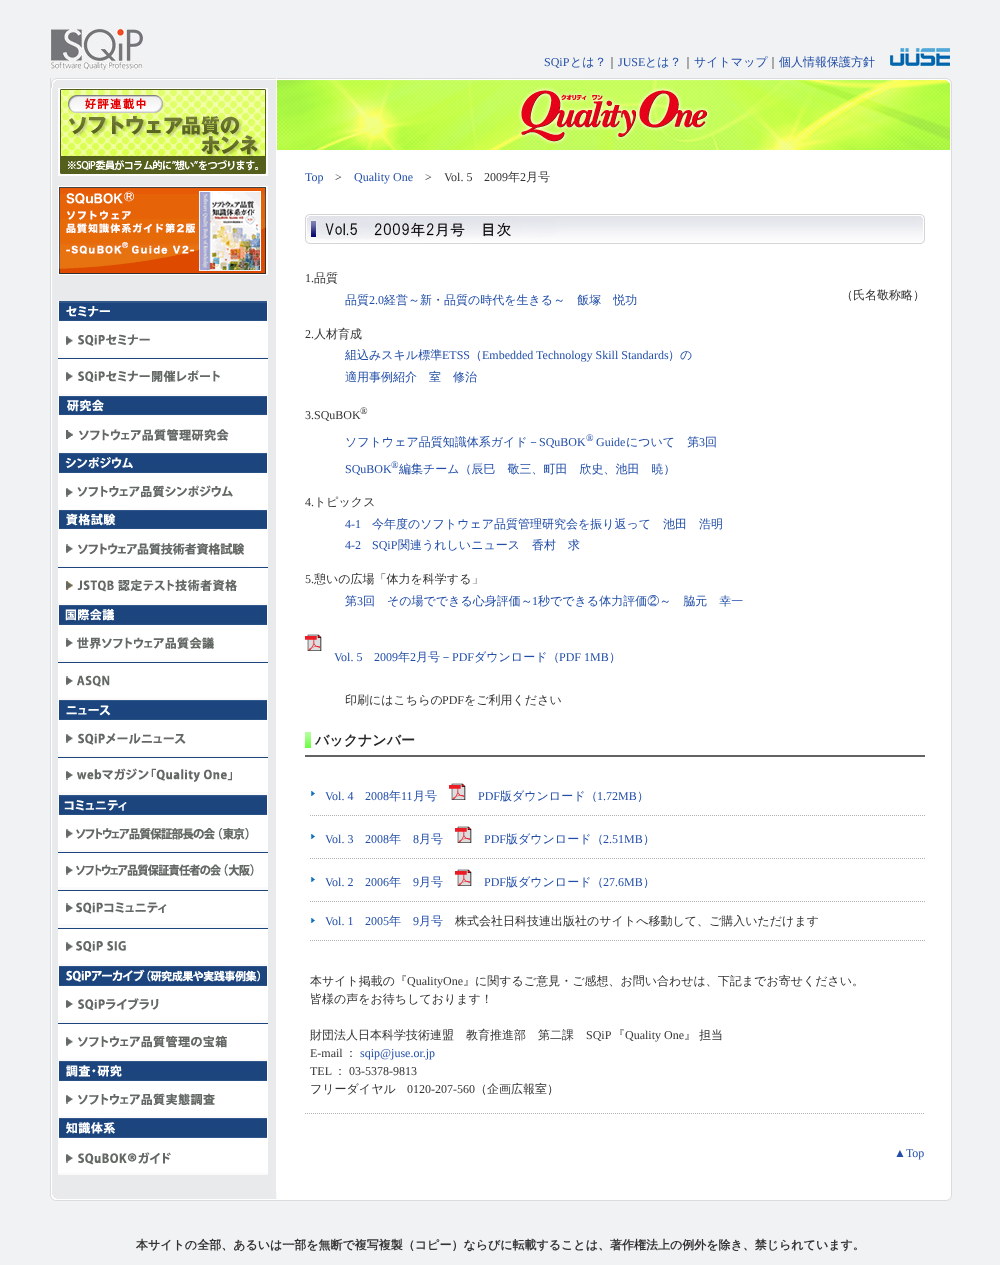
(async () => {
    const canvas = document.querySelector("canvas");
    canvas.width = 1000;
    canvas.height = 1265;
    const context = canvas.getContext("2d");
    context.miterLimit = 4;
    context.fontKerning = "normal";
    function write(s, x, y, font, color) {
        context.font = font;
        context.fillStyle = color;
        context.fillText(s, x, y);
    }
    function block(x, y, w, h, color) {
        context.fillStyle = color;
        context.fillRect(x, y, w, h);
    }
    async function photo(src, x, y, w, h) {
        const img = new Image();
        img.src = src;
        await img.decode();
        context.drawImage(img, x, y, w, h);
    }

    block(0, 0, 1000, 1265, "rgb(241, 242, 243)");
    await photo("media/1.png", 50, 28, 94, 43);
    write("SQiP", 544, 66, "12px Liberation Serif", "rgb(34, 78, 167)");
    write("とは？", 570, 66, "500 12px WenQuanYi Zen Hei", "rgb(34, 78, 167)");
    write("｜", 606, 66, "500 12px WenQuanYi Zen Hei", "rgb(51, 51, 51)");
    write("JUSE", 618, 66, "12px Liberation Serif", "rgb(34, 78, 167)");
    write("とは？", 645, 66, "500 12px WenQuanYi Zen Hei", "rgb(34, 78, 167)");
    write("｜", 682, 66, "500 12px WenQuanYi Zen Hei", "rgb(51, 51, 51)");
    write("サイトマップ", 694, 66, "500 12px WenQuanYi Zen Hei", "rgb(34, 78, 167)");
    write("｜", 767, 66, "500 12px WenQuanYi Zen Hei", "rgb(51, 51, 51)");
    write("個人情報保護方針", 779, 66, "500 12px WenQuanYi Zen Hei", "rgb(34, 78, 167)");
    await photo("media/2.png", 890, 48, 60, 18);
    await photo("media/3.png", 50, 78, 902, 1113);
    await photo("media/4.png", 51, 78, 225, 10);
    await photo("media/5.png", 58, 88, 210, 88);
    await photo("media/6.png", 58, 186, 210, 89);
    block(58, 356, 210, 819, "rgb(250, 250, 250)");
    await photo("media/7.png", 58, 301, 210, 20);
    block(58, 358, 210, 1, "rgb(28, 69, 125)");
    await photo("media/8.png", 58, 321, 210, 35);
    await photo("media/9.png", 58, 359, 210, 35);
    await photo("media/10.png", 58, 396, 210, 19);
    await photo("media/11.png", 58, 416, 210, 36);
    await photo("media/12.png", 58, 453, 210, 20);
    await photo("media/13.png", 58, 473, 210, 36);
    await photo("media/14.png", 58, 510, 210, 19);
    block(58, 567, 210, 1, "rgb(28, 69, 125)");
    await photo("media/15.png", 58, 530, 210, 35);
    await photo("media/16.png", 58, 568, 210, 35);
    await photo("media/17.png", 58, 605, 210, 20);
    block(58, 662, 210, 1, "rgb(28, 69, 125)");
    await photo("media/18.png", 58, 625, 210, 35);
    await photo("media/19.png", 58, 663, 210, 35);
    await photo("media/20.png", 58, 700, 210, 20);
    block(58, 757, 210, 1, "rgb(28, 69, 125)");
    await photo("media/21.png", 58, 720, 210, 35);
    await photo("media/22.png", 58, 758, 210, 34);
    await photo("media/23.png", 58, 795, 210, 20);
    block(58, 852, 210, 1, "rgb(28, 69, 125)");
    await photo("media/24.png", 58, 815, 210, 35);
    block(58, 890, 210, 1, "rgb(28, 69, 125)");
    await photo("media/25.png", 58, 853, 210, 34);
    block(58, 928, 210, 1, "rgb(28, 69, 125)");
    await photo("media/26.png", 58, 891, 210, 33);
    await photo("media/27.png", 58, 929, 210, 35);
    await photo("media/28.png", 58, 966, 210, 20);
    block(58, 1023, 210, 1, "rgb(28, 69, 125)");
    await photo("media/29.png", 58, 986, 210, 34);
    await photo("media/30.png", 58, 1024, 210, 35);
    await photo("media/31.png", 58, 1061, 210, 20);
    await photo("media/32.png", 58, 1081, 210, 35);
    await photo("media/33.png", 58, 1118, 210, 20);
    await photo("media/34.png", 58, 1138, 210, 35);
    await photo("media/35.png", 277, 78, 675, 72);
    write("Top", 305, 181, "12px Liberation Serif", "rgb(34, 78, 167)");
    write(">", 335, 181, "12px Liberation Serif", "rgb(51, 51, 51)");
    write("Quality One", 354, 181, "12px Liberation Serif", "rgb(34, 78, 167)");
    write(">", 425, 181, "12px Liberation Serif", "rgb(51, 51, 51)");
    write("Vol. 5", 444, 181, "12px Liberation Serif", "rgb(51, 51, 51)");
    write("2009", 484, 181, "12px Liberation Serif", "rgb(51, 51, 51)");
    write("年", 508, 181, "500 12px WenQuanYi Zen Hei", "rgb(51, 51, 51)");
    write("2", 520, 181, "12px Liberation Serif", "rgb(51, 51, 51)");
    write("月号", 526, 181, "500 12px WenQuanYi Zen Hei", "rgb(51, 51, 51)");
    await photo("media/36.png", 305, 214, 620, 30);
    write("1.", 305, 282, "12px Liberation Serif", "rgb(51, 51, 51)");
    write("品質", 314, 282, "500 12px WenQuanYi Zen Hei", "rgb(51, 51, 51)");
    write("品質", 345, 304, "500 12px WenQuanYi Zen Hei", "rgb(34, 78, 167)");
    write("2.0", 369, 304, "12px Liberation Serif", "rgb(34, 78, 167)");
    write("経営～新・品質の時代を生きる～　飯塚　悦功", 384, 304, "500 12px WenQuanYi Zen Hei", "rgb(34, 78, 167)");
    write("（氏名敬称略）", 841, 299, "500 12px WenQuanYi Zen Hei", "rgb(51, 51, 51)");
    write("2.", 305, 338, "12px Liberation Serif", "rgb(51, 51, 51)");
    write("人材育成", 314, 338, "500 12px WenQuanYi Zen Hei", "rgb(51, 51, 51)");
    write("組込みスキル標準", 345, 359, "500 12px WenQuanYi Zen Hei", "rgb(34, 78, 167)");
    write("ETSS", 442, 359, "12px Liberation Serif", "rgb(34, 78, 167)");
    write("（", 470, 359, "500 12px WenQuanYi Zen Hei", "rgb(34, 78, 167)");
    write("Embedded Technology Skill Standards", 482, 359, "12px Liberation Serif", "rgb(34, 78, 167)");
    write("）の", 668, 359, "500 12px WenQuanYi Zen Hei", "rgb(34, 78, 167)");
    write("適用事例紹介　室　修治", 345, 381, "500 12px WenQuanYi Zen Hei", "rgb(34, 78, 167)");
    write("3.SQuBOK", 305, 419, "12px Liberation Serif", "rgb(51, 51, 51)");
    write("®", 360, 414, "10px Liberation Serif", "rgb(51, 51, 51)");
    write("ソフトウェア品質知識体系ガイド－", 345, 446, "500 12px WenQuanYi Zen Hei", "rgb(34, 78, 167)");
    write("SQuBOK", 539, 446, "12px Liberation Serif", "rgb(34, 78, 167)");
    write("®", 586, 441, "10px Liberation Serif", "rgb(34, 78, 167)");
    write("Guide", 596, 446, "12px Liberation Serif", "rgb(34, 78, 167)");
    write("について　第", 626, 446, "500 12px WenQuanYi Zen Hei", "rgb(34, 78, 167)");
    write("3", 699, 446, "12px Liberation Serif", "rgb(34, 78, 167)");
    write("回", 705, 446, "500 12px WenQuanYi Zen Hei", "rgb(34, 78, 167)");
    write("SQuBOK", 345, 473, "12px Liberation Serif", "rgb(34, 78, 167)");
    write("®", 391, 468, "10px Liberation Serif", "rgb(34, 78, 167)");
    write("編集チーム（辰巳　敬三、町田　欣史、池田　暁）", 399, 473, "500 12px WenQuanYi Zen Hei", "rgb(34, 78, 167)");
    write("4.", 305, 506, "12px Liberation Serif", "rgb(51, 51, 51)");
    write("トピックス", 314, 506, "500 12px WenQuanYi Zen Hei", "rgb(51, 51, 51)");
    write("4-1", 345, 528, "12px Liberation Serif", "rgb(34, 78, 167)");
    write("今年度のソフトウェア品質管理研究会を振り返って　池田　浩明", 372, 528, "500 12px WenQuanYi Zen Hei", "rgb(34, 78, 167)");
    write("4-2", 345, 549, "12px Liberation Serif", "rgb(34, 78, 167)");
    write("SQiP", 372, 549, "12px Liberation Serif", "rgb(34, 78, 167)");
    write("関連うれしいニュース　香村　求", 398, 549, "500 12px WenQuanYi Zen Hei", "rgb(34, 78, 167)");
    write("5.", 305, 583, "12px Liberation Serif", "rgb(51, 51, 51)");
    write("憩いの広場「体力を科学する」", 314, 583, "500 12px WenQuanYi Zen Hei", "rgb(51, 51, 51)");
    write("第", 345, 605, "500 12px WenQuanYi Zen Hei", "rgb(34, 78, 167)");
    write("3", 357, 605, "12px Liberation Serif", "rgb(34, 78, 167)");
    write("回　その場でできる心身評価～", 363, 605, "500 12px WenQuanYi Zen Hei", "rgb(34, 78, 167)");
    write("1", 532, 605, "12px Liberation Serif", "rgb(34, 78, 167)");
    write("秒でできる体力評価②～　脇元　幸一", 538, 605, "500 12px WenQuanYi Zen Hei", "rgb(34, 78, 167)");
    await photo("media/37.png", 305, 634, 17, 17);
    write("Vol. 5", 334, 661, "12px Liberation Serif", "rgb(34, 78, 167)");
    write("2009", 374, 661, "12px Liberation Serif", "rgb(34, 78, 167)");
    write("年", 398, 661, "500 12px WenQuanYi Zen Hei", "rgb(34, 78, 167)");
    write("2", 410, 661, "12px Liberation Serif", "rgb(34, 78, 167)");
    write("月号－", 416, 661, "500 12px WenQuanYi Zen Hei", "rgb(34, 78, 167)");
    write("PDF", 452, 661, "12px Liberation Serif", "rgb(34, 78, 167)");
    write("ダウンロード（", 474, 661, "500 12px WenQuanYi Zen Hei", "rgb(34, 78, 167)");
    write("PDF 1MB", 559, 661, "12px Liberation Serif", "rgb(34, 78, 167)");
    write("）", 609, 661, "500 12px WenQuanYi Zen Hei", "rgb(34, 78, 167)");
    write("印刷にはこちらの", 345, 704, "500 12px WenQuanYi Zen Hei", "rgb(51, 51, 51)");
    write("PDF", 442, 704, "12px Liberation Serif", "rgb(51, 51, 51)");
    write("をご利用ください", 464, 704, "500 12px WenQuanYi Zen Hei", "rgb(51, 51, 51)");
    await photo("media/38.png", 305, 732, 6, 16);
    block(305, 755, 620, 2, "rgb(99, 99, 99)");
    write("バックナンバー", 315, 745, "bold 14px WenQuanYi Zen Hei", "rgb(39, 39, 39)");
    await photo("media/39.png", 310, 791, 6, 5);
    context.beginPath();
    context.moveTo(310, 815.5);
    context.lineTo(925, 815.5);
    context.strokeStyle = "rgb(178, 178, 178)";
    context.setLineDash([1, 1]);
    context.stroke();
    write("Vol. 4", 325, 800, "12px Liberation Serif", "rgb(34, 78, 167)");
    write("2008", 365, 800, "12px Liberation Serif", "rgb(34, 78, 167)");
    write("年", 389, 800, "500 12px WenQuanYi Zen Hei", "rgb(34, 78, 167)");
    write("11", 401, 800, "12px Liberation Serif", "rgb(34, 78, 167)");
    write("月号", 413, 800, "500 12px WenQuanYi Zen Hei", "rgb(34, 78, 167)");
    await photo("media/37.png", 449, 783, 17, 17);
    write("PDF", 478, 800, "12px Liberation Serif", "rgb(34, 78, 167)");
    write("版ダウンロード（", 500, 800, "500 12px WenQuanYi Zen Hei", "rgb(34, 78, 167)");
    write("1.72MB", 597, 800, "12px Liberation Serif", "rgb(34, 78, 167)");
    write("）", 637, 800, "500 12px WenQuanYi Zen Hei", "rgb(34, 78, 167)");
    await photo("media/39.png", 310, 834, 6, 5);
    context.beginPath();
    context.moveTo(310, 858.5);
    context.lineTo(925, 858.5);
    context.stroke();
    write("Vol. 3", 325, 843, "12px Liberation Serif", "rgb(34, 78, 167)");
    write("2008", 365, 843, "12px Liberation Serif", "rgb(34, 78, 167)");
    write("年", 389, 843, "500 12px WenQuanYi Zen Hei", "rgb(34, 78, 167)");
    write("8", 413, 843, "12px Liberation Serif", "rgb(34, 78, 167)");
    write("月号", 419, 843, "500 12px WenQuanYi Zen Hei", "rgb(34, 78, 167)");
    await photo("media/37.png", 455, 826, 17, 17);
    write("PDF", 484, 843, "12px Liberation Serif", "rgb(34, 78, 167)");
    write("版ダウンロード（", 506, 843, "500 12px WenQuanYi Zen Hei", "rgb(34, 78, 167)");
    write("2.51MB", 603, 843, "12px Liberation Serif", "rgb(34, 78, 167)");
    write("）", 643, 843, "500 12px WenQuanYi Zen Hei", "rgb(34, 78, 167)");
    await photo("media/39.png", 310, 877, 6, 5);
    context.beginPath();
    context.moveTo(310, 901.5);
    context.lineTo(925, 901.5);
    context.stroke();
    write("Vol. 2", 325, 886, "12px Liberation Serif", "rgb(34, 78, 167)");
    write("2006", 365, 886, "12px Liberation Serif", "rgb(34, 78, 167)");
    write("年", 389, 886, "500 12px WenQuanYi Zen Hei", "rgb(34, 78, 167)");
    write("9", 413, 886, "12px Liberation Serif", "rgb(34, 78, 167)");
    write("月号", 419, 886, "500 12px WenQuanYi Zen Hei", "rgb(34, 78, 167)");
    await photo("media/37.png", 455, 869, 17, 17);
    write("PDF", 484, 886, "12px Liberation Serif", "rgb(34, 78, 167)");
    write("版ダウンロード（", 506, 886, "500 12px WenQuanYi Zen Hei", "rgb(34, 78, 167)");
    write("27.6MB", 603, 886, "12px Liberation Serif", "rgb(34, 78, 167)");
    write("）", 643, 886, "500 12px WenQuanYi Zen Hei", "rgb(34, 78, 167)");
    await photo("media/39.png", 310, 918, 6, 5);
    context.beginPath();
    context.moveTo(310, 940.5);
    context.lineTo(925, 940.5);
    context.stroke();
    write("Vol. 1", 325, 925, "12px Liberation Serif", "rgb(34, 78, 167)");
    write("2005", 365, 925, "12px Liberation Serif", "rgb(34, 78, 167)");
    write("年", 389, 925, "500 12px WenQuanYi Zen Hei", "rgb(34, 78, 167)");
    write("9", 413, 925, "12px Liberation Serif", "rgb(34, 78, 167)");
    write("月号", 419, 925, "500 12px WenQuanYi Zen Hei", "rgb(34, 78, 167)");
    write("株式会社日科技連出版社のサイトへ移動して、ご購入いただけます", 455, 925, "500 12px WenQuanYi Zen Hei", "rgb(51, 51, 51)");
    context.beginPath();
    context.moveTo(305, 1113.5);
    context.lineTo(925, 1113.5);
    context.stroke();
    write("本サイト掲載の『", 310, 985, "500 12px WenQuanYi Zen Hei", "rgb(51, 51, 51)");
    write("QualityOne", 407, 985, "12px Liberation Serif", "rgb(51, 51, 51)");
    write("』に関するご意見・ご感想、お問い合わせは、下記までお寄せください。", 463, 985, "500 12px WenQuanYi Zen Hei", "rgb(51, 51, 51)");
    write("皆様の声をお待ちしております！", 310, 1003, "500 12px WenQuanYi Zen Hei", "rgb(51, 51, 51)");
    write("財団法人日本科学技術連盟　教育推進部　第二課", 310, 1039, "500 12px WenQuanYi Zen Hei", "rgb(51, 51, 51)");
    write("SQiP", 586, 1039, "12px Liberation Serif", "rgb(51, 51, 51)");
    write("『", 613, 1039, "500 12px WenQuanYi Zen Hei", "rgb(51, 51, 51)");
    write("Quality One", 625, 1039, "12px Liberation Serif", "rgb(51, 51, 51)");
    write("』", 684, 1039, "500 12px WenQuanYi Zen Hei", "rgb(51, 51, 51)");
    write("担当", 699, 1039, "500 12px WenQuanYi Zen Hei", "rgb(51, 51, 51)");
    write("E-mail", 310, 1057, "12px Liberation Serif", "rgb(51, 51, 51)");
    write("：", 345, 1057, "500 12px WenQuanYi Zen Hei", "rgb(51, 51, 51)");
    write("sqip@juse.or.jp", 360, 1057, "12px Liberation Serif", "rgb(34, 78, 167)");
    write("TEL", 310, 1075, "12px Liberation Serif", "rgb(51, 51, 51)");
    write("：", 334, 1075, "500 12px WenQuanYi Zen Hei", "rgb(51, 51, 51)");
    write("03-5378-9813", 349, 1075, "12px Liberation Serif", "rgb(51, 51, 51)");
    write("フリーダイヤル", 310, 1093, "500 12px WenQuanYi Zen Hei", "rgb(51, 51, 51)");
    write("0120-207-560", 407, 1093, "12px Liberation Serif", "rgb(51, 51, 51)");
    write("（企画広報室）", 475, 1093, "500 12px WenQuanYi Zen Hei", "rgb(51, 51, 51)");
    write("▲Top", 894, 1157, "12px Liberation Serif", "rgb(34, 78, 167)");
    await photo("media/40.png", 50, 1191, 902, 10);
    write("本サイトの全部、あるいは一部を無断で複写複製（コピー）ならびに転載することは、著作権法上の例外を除き、禁じられています。", 136, 1249, "bold 12px WenQuanYi Zen Hei", "rgb(51, 51, 51)");
})();
